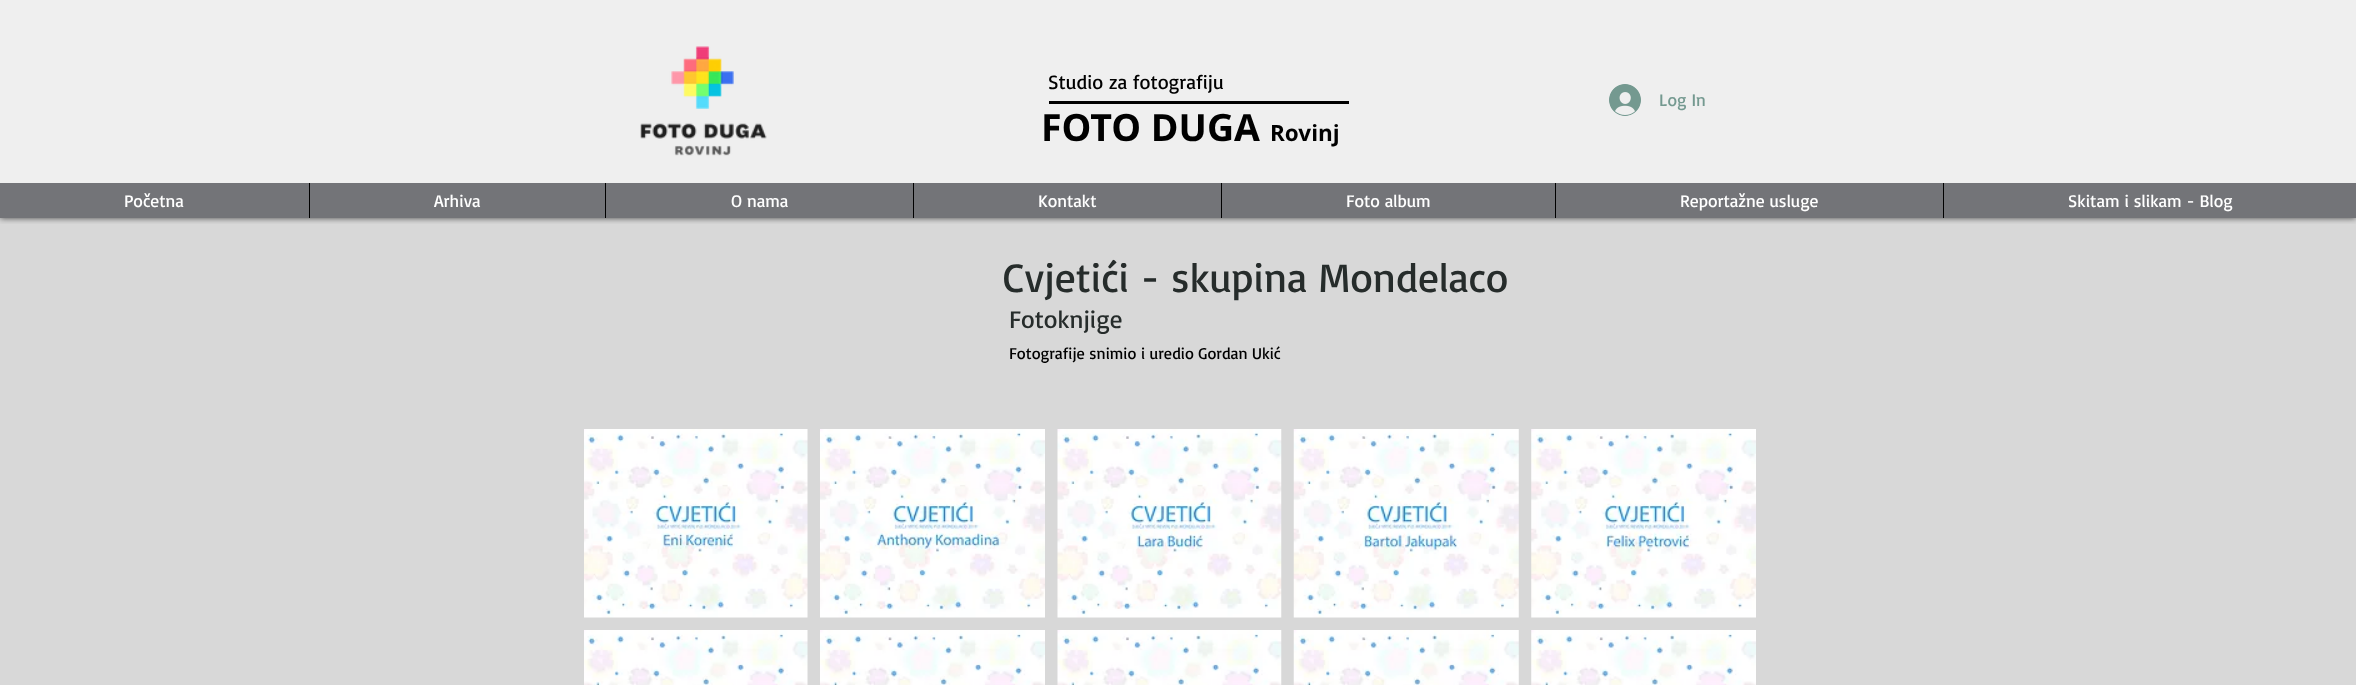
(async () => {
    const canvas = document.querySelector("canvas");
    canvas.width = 2356;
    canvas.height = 685;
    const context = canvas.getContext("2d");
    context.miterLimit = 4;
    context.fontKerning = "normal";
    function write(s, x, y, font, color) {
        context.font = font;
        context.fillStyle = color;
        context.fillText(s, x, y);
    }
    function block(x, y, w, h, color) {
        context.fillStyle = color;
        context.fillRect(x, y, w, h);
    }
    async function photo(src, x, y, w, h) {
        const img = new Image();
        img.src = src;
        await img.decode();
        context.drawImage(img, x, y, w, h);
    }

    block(0, 0, 2356, 685, "rgb(216, 216, 216)");
    context.save();
    context.beginPath();
    context.rect(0, 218, 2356, 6);
    context.clip();
    context.fillStyle = "rgba(0, 0, 0, 0.7)";
    context.filter = "blur(3px)";
    context.beginPath();
    context.rect(0, 0, 2356, 218);
    context.fill();
    context.filter = "none";
    context.restore();
    block(0, 0, 2356, 183, "rgba(255, 255, 255, 0.6)");
    await photo("media/1.png", 640, 46, 127, 110);
    write("Studio za fotografiju", 1048, 89, "20px Basic", "rgb(0, 0, 0)");
    block(1049, 101, 300, 3, "rgb(0, 0, 0)");
    await photo("media/2.png", 1609, 84, 32, 32);
    write("Log In", 1659, 106, "17.5px Basic", "rgb(116, 153, 144)");
    write("FOTO DUGA", 1041, 141, "bold 37.5px Open Sans", "rgb(0, 0, 0)");
    write("Rovinj", 1270, 141, "bold 22.5px Open Sans", "rgb(0, 0, 0)");
    block(0, 183, 2356, 35, "rgb(115, 116, 120)");
    write("Početna", 124, 207, "17.5px Basic", "rgb(255, 255, 255)");
    block(309, 183, 1, 35, "rgb(0, 0, 0)");
    write("Arhiva", 434, 207, "17.5px Basic", "rgb(255, 255, 255)");
    block(605, 183, 1, 35, "rgb(0, 0, 0)");
    write("O nama", 731, 207, "17.5px Basic", "rgb(255, 255, 255)");
    block(913, 183, 1, 35, "rgb(0, 0, 0)");
    write("Kontakt", 1038, 207, "17.5px Basic", "rgb(255, 255, 255)");
    block(1221, 183, 1, 35, "rgb(0, 0, 0)");
    write("Foto album", 1346, 207, "17.5px Basic", "rgb(255, 255, 255)");
    block(1555, 183, 1, 35, "rgb(0, 0, 0)");
    write("Reportažne usluge", 1680, 207, "17.5px Basic", "rgb(255, 255, 255)");
    block(1943, 183, 1, 35, "rgb(0, 0, 0)");
    write("Skitam i slikam - Blog", 2068, 207, "17.5px Basic", "rgb(255, 255, 255)");
    write("Cvjetići - skupina Mondelaco", 1003, 292, "41.25px Basic", "rgb(38, 44, 43)");
    write("Fotoknjige", 1009, 328, "25px Basic", "rgb(38, 44, 43)");
    write("Fotografije snimio i uredio Gordan Ukić", 1009, 359, "16.25px Basic", "rgb(0, 0, 0)");
    await photo("media/3.png", 584, 429, 224, 189);
    await photo("media/4.png", 820, 429, 225, 189);
    await photo("media/5.png", 1057, 429, 225, 189);
    await photo("media/6.png", 1293, 429, 226, 189);
    await photo("media/7.png", 1531, 429, 225, 189);
    await photo("media/8.png", 584, 630, 224, 55);
    await photo("media/9.png", 820, 630, 225, 55);
    await photo("media/10.png", 1057, 630, 225, 55);
    await photo("media/11.png", 1293, 630, 226, 55);
    await photo("media/12.png", 1531, 630, 225, 55);
})();
